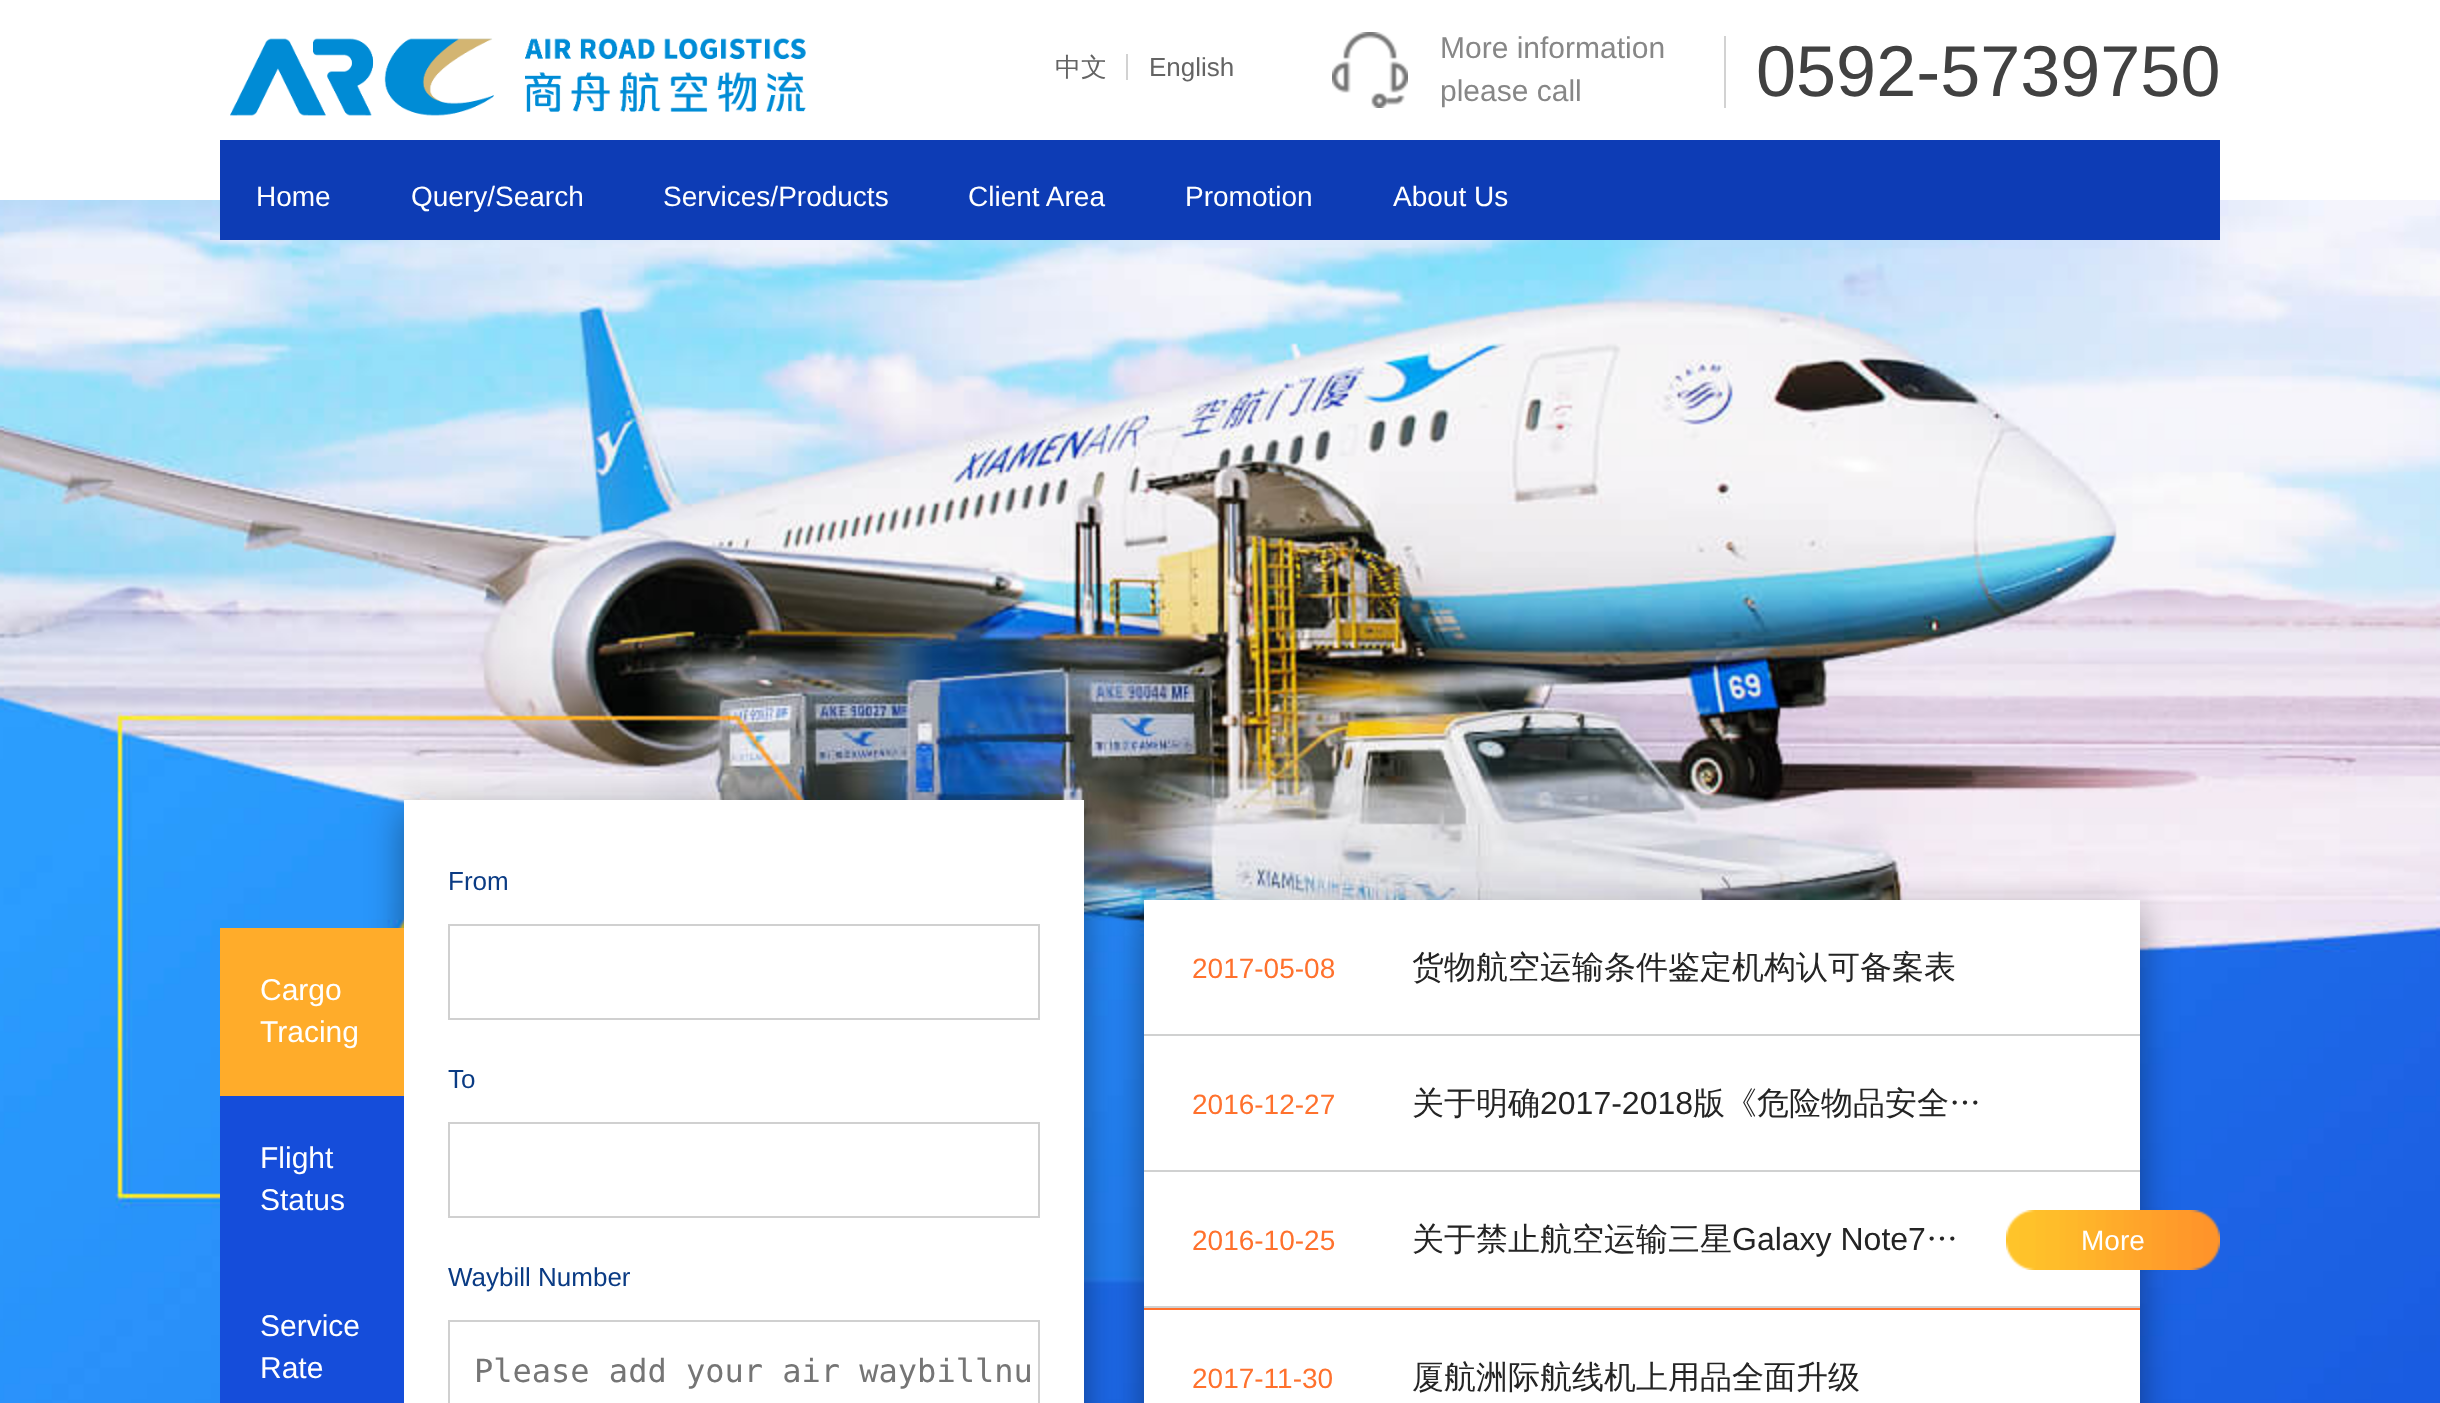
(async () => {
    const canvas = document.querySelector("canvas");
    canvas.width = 2440;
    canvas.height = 1403;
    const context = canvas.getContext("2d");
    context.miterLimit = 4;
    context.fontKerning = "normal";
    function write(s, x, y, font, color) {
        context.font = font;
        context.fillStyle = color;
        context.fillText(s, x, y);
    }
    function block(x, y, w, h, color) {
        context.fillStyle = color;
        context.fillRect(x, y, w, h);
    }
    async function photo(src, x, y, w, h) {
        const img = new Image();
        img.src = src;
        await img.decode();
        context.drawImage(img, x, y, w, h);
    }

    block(0, 0, 2440, 1403, "rgb(255, 255, 255)");
    await photo("media/1.png", 230, 38, 576, 78);
    block(1126, 54, 2, 26, "rgb(210, 210, 210)");
    write("中文", 1055, 76, "500 26px WenQuanYi Zen Hei", "rgb(100, 100, 100)");
    write("English", 1149, 76, "26px Liberation Sans", "rgb(100, 100, 100)");
    await photo("media/2.png", 1332, 32, 76, 76);
    write("More information", 1440, 58, "30px Liberation Sans", "rgb(135, 135, 135)");
    write("please call", 1440, 101, "30px Liberation Sans", "rgb(135, 135, 135)");
    block(1724, 36, 2, 72, "rgb(210, 210, 210)");
    write("0592-5739750", 1756, 96, "72px Liberation Sans", "rgb(65, 65, 65)");
    await photo("media/3.png", 0, 200, 2440, 1203);
    block(220, 140, 2000, 100, "rgb(13, 60, 181)");
    write("Home", 256, 206, "28px Liberation Sans", "rgb(255, 255, 255)");
    write("Query/Search", 411, 206, "28px Liberation Sans", "rgb(255, 255, 255)");
    write("Services/Products", 663, 206, "28px Liberation Sans", "rgb(255, 255, 255)");
    write("Client Area", 968, 206, "28px Liberation Sans", "rgb(255, 255, 255)");
    write("Promotion", 1185, 206, "28px Liberation Sans", "rgb(255, 255, 255)");
    write("About Us", 1393, 206, "28px Liberation Sans", "rgb(255, 255, 255)");
    context.fillStyle = "rgba(0, 0, 0, 0.4)";
    context.filter = "blur(18px)";
    context.beginPath();
    context.rect(404, 812, 680, 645);
    context.fill();
    context.filter = "none";
    block(220, 928, 184, 168, "rgb(255, 172, 42)");
    write("Cargo", 260, 1000, "30px Liberation Sans", "rgb(255, 255, 255)");
    write("Tracing", 260, 1042, "30px Liberation Sans", "rgb(255, 255, 255)");
    block(220, 1096, 184, 307, "rgb(21, 77, 218)");
    write("Flight", 260, 1168, "30px Liberation Sans", "rgb(255, 255, 255)");
    write("Status", 260, 1210, "30px Liberation Sans", "rgb(255, 255, 255)");
    write("Service", 260, 1336, "30px Liberation Sans", "rgb(255, 255, 255)");
    write("Rate", 260, 1378, "30px Liberation Sans", "rgb(255, 255, 255)");
    block(404, 800, 680, 603, "rgb(255, 255, 255)");
    write("From", 448, 890, "26px Liberation Sans", "rgb(10, 59, 132)");
    context.strokeStyle = "rgb(208, 208, 208)";
    context.lineWidth = 2;
    context.strokeRect(449, 925, 590, 94);
    write("To", 448, 1088, "26px Liberation Sans", "rgb(10, 59, 132)");
    context.strokeRect(449, 1123, 590, 94);
    write("Waybill Number", 448, 1286, "26px Liberation Sans", "rgb(10, 59, 132)");
    context.strokeRect(449, 1321, 590, 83);
    write("Please add your air waybillnu", 474, 1382, "32px DejaVu Sans Mono", "rgb(117, 117, 117)");
    context.fillStyle = "rgba(0, 0, 0, 0.4)";
    context.filter = "blur(18px)";
    context.beginPath();
    context.rect(1144, 912, 996, 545);
    context.fill();
    context.filter = "none";
    block(1144, 900, 996, 503, "rgb(255, 255, 255)");
    block(1144, 1308, 996, 2, "rgb(255, 113, 45)");
    block(1144, 1034, 996, 2, "rgb(208, 209, 209)");
    write("2017-05-08", 1192, 978, "28px Liberation Sans", "rgb(255, 113, 45)");
    write("货物航空运输条件鉴定机构认可备案表", 1412, 978, "500 32px WenQuanYi Zen Hei", "rgb(36, 36, 36)");
    block(1144, 1170, 996, 2, "rgb(208, 209, 209)");
    write("2016-12-27", 1192, 1114, "28px Liberation Sans", "rgb(255, 113, 45)");
    write("关于明确", 1412, 1114, "500 32px WenQuanYi Zen Hei", "rgb(36, 36, 36)");
    write("2017-2018", 1540, 1114, "32px Liberation Sans", "rgb(36, 36, 36)");
    write("版《危险物品安全…", 1693, 1114, "500 32px WenQuanYi Zen Hei", "rgb(36, 36, 36)");
    block(1144, 1306, 996, 2, "rgb(208, 209, 209)");
    write("2016-10-25", 1192, 1250, "28px Liberation Sans", "rgb(255, 113, 45)");
    write("关于禁止航空运输三星", 1412, 1250, "500 32px WenQuanYi Zen Hei", "rgb(36, 36, 36)");
    write("Galaxy Note7", 1732, 1250, "32px Liberation Sans", "rgb(36, 36, 36)");
    write("…", 1926, 1250, "500 32px WenQuanYi Zen Hei", "rgb(36, 36, 36)");
    await photo("media/4.png", 2006, 1210, 214, 60);
    write("More", 2081, 1250, "28px Liberation Sans", "rgb(255, 255, 255)");
    write("2017-11-30", 1192, 1388, "28px Liberation Sans", "rgb(255, 113, 45)");
    write("厦航洲际航线机上用品全面升级", 1412, 1388, "500 32px WenQuanYi Zen Hei", "rgb(36, 36, 36)");
})();
